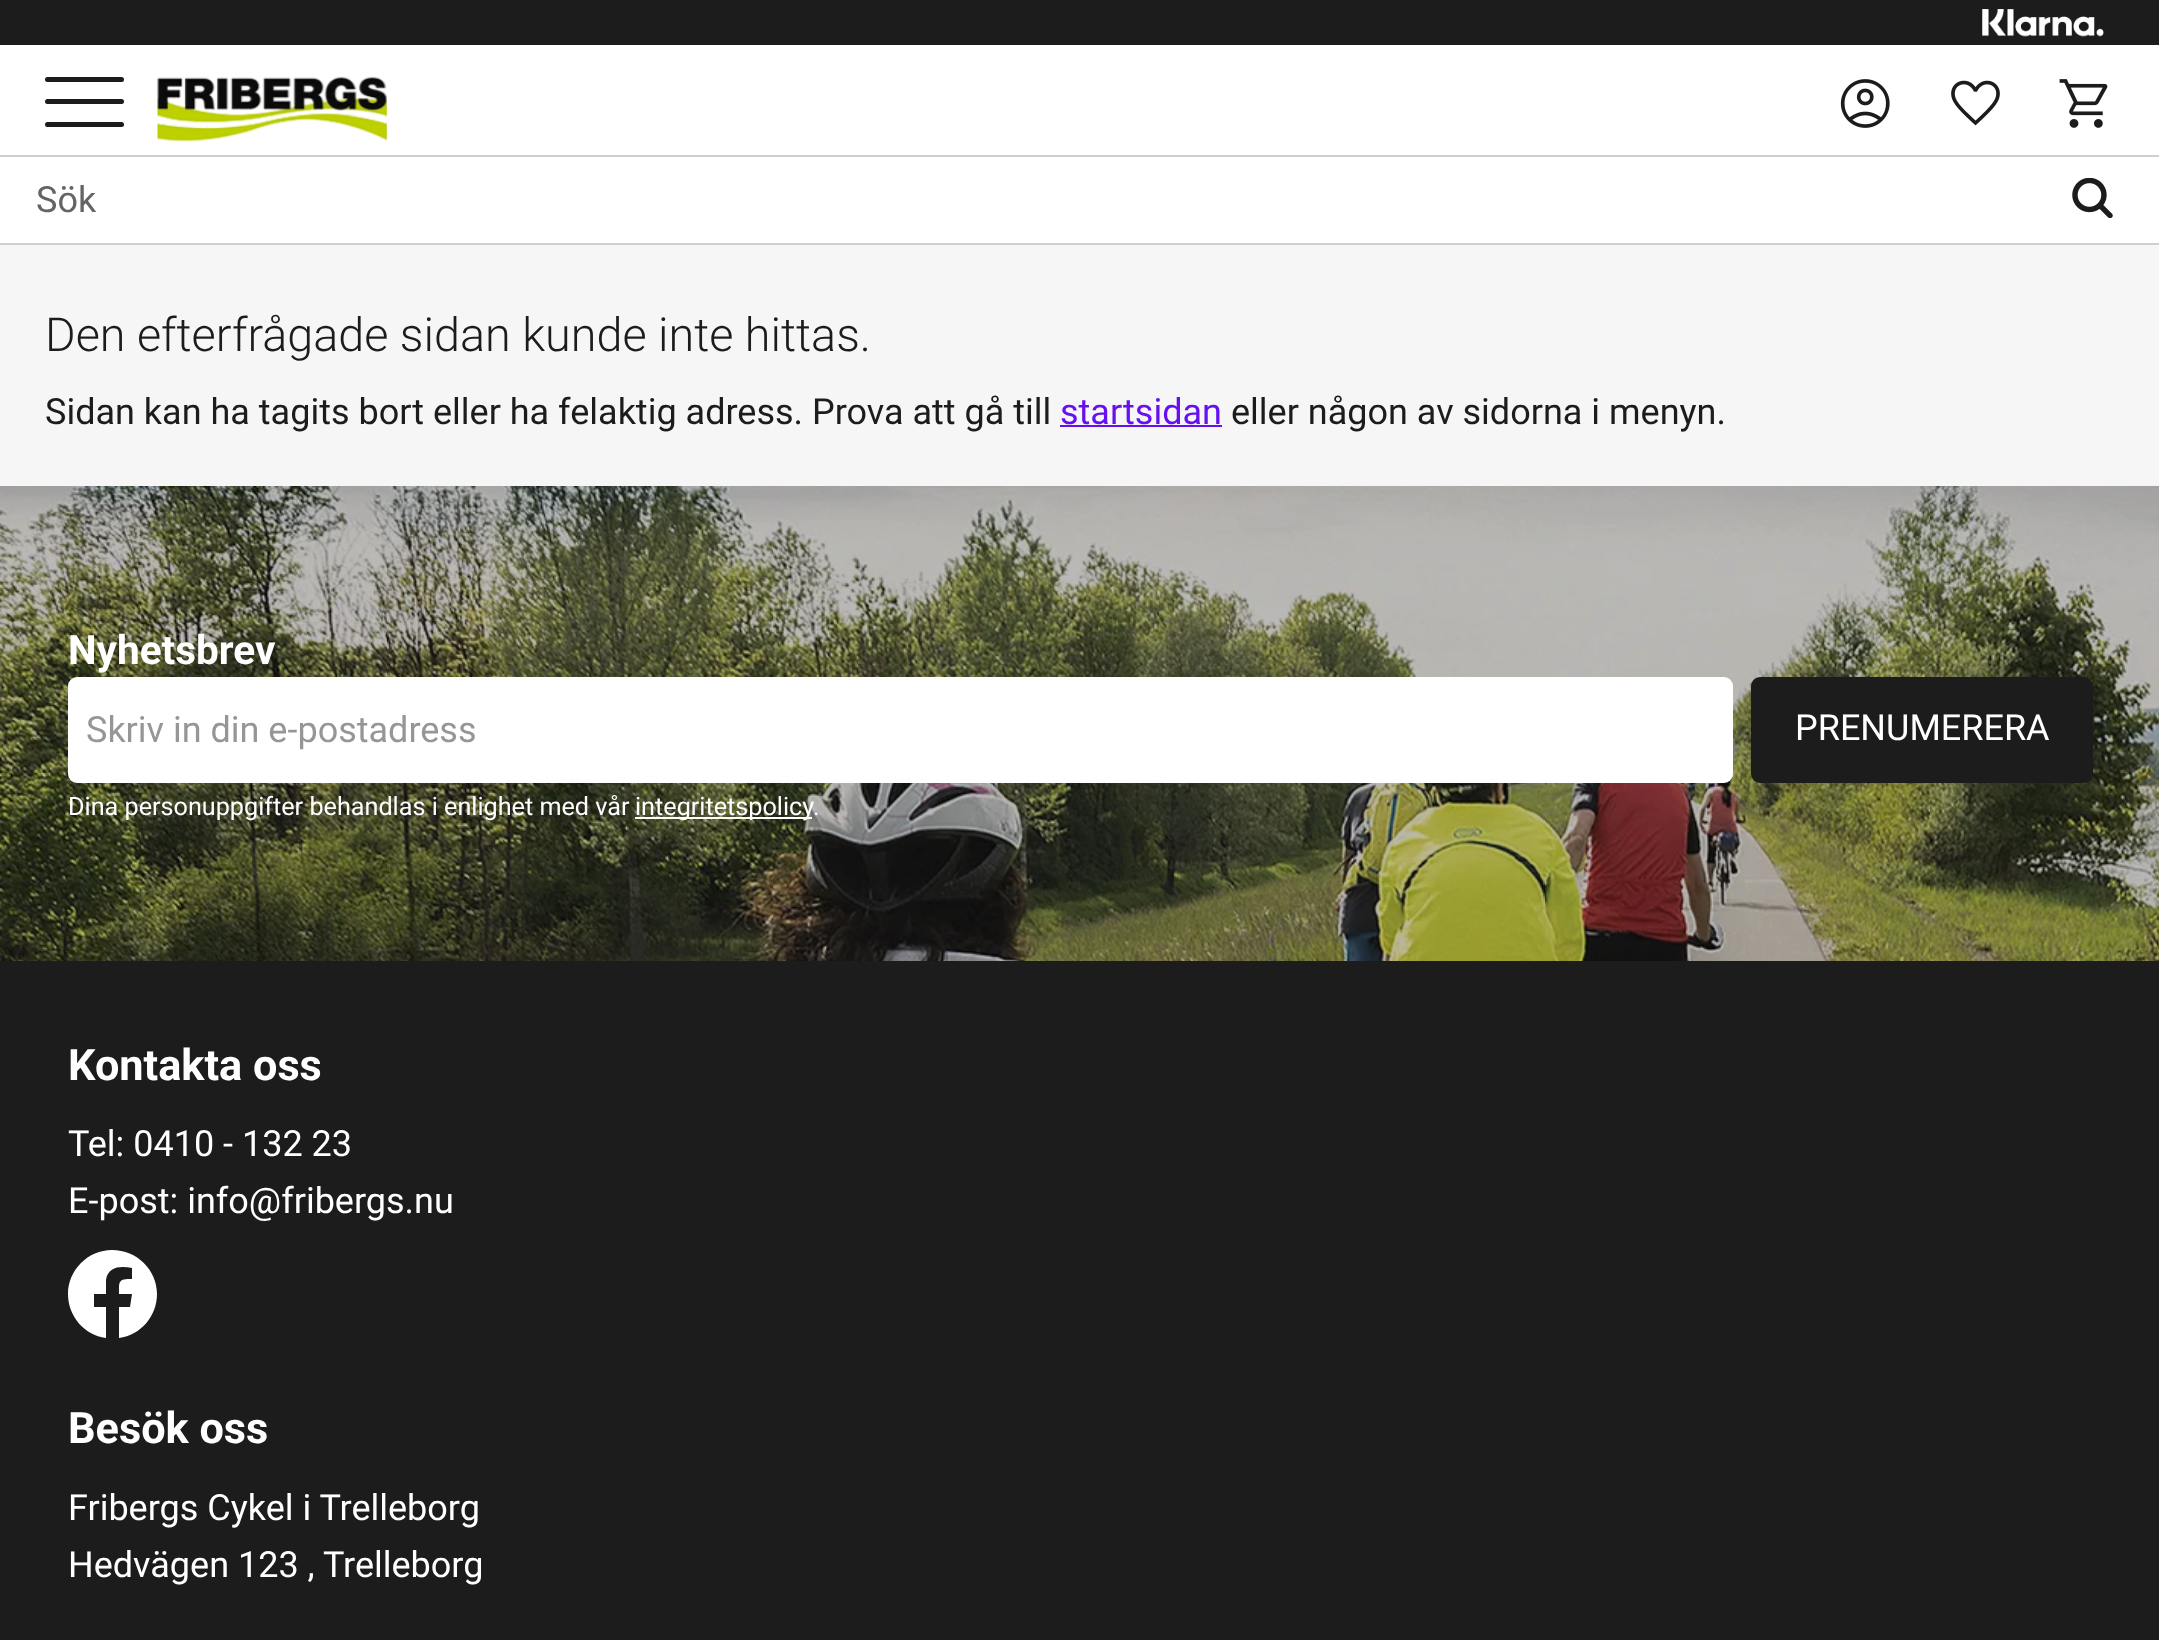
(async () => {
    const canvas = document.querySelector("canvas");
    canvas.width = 2159;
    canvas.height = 1640;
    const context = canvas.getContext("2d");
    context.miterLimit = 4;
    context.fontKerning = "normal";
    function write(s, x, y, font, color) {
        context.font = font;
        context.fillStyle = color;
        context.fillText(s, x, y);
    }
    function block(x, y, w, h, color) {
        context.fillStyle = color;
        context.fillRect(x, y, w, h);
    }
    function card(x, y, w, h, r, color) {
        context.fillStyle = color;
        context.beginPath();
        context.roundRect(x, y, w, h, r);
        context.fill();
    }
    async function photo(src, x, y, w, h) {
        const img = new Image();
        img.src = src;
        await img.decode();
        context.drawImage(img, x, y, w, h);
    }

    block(0, 0, 2159, 1640, "rgb(246, 246, 246)");
    block(0, 45, 2159, 110, "rgb(255, 255, 255)");
    card(45, 99, 79, 5, 2.5, "rgb(28, 28, 28)");
    card(45, 77, 79, 5, 2.5, "rgb(28, 28, 28)");
    card(45, 122, 79, 5, 2.5, "rgb(28, 28, 28)");
    block(0, 0, 2159, 45, "rgb(28, 28, 28)");
    await photo("media/1.png", 1982, 9, 122, 28);
    await photo("media/2.png", 157, 76, 230, 66);
    await photo("media/3.png", 1840, 79, 50, 49);
    await photo("media/4.png", 1951, 80, 49, 46);
    await photo("media/5.png", 2059, 79, 49, 49);
    block(0, 157, 2159, 86, "rgb(255, 255, 255)");
    block(0, 155, 2159, 2, "rgb(207, 207, 207)");
    block(0, 243, 2159, 2, "rgb(207, 207, 207)");
    write("Sök", 36, 212, "36px Roboto", "rgb(100, 100, 100)");
    await photo("media/6.png", 2072, 178, 41, 40);
    write("Den efterfrågade sidan kunde inte hittas.", 45, 351, "300 46.75px Roboto", "rgb(28, 28, 28)");
    write("Sidan kan ha tagits bort eller ha felaktig adress. Prova att gå till", 45, 424, "36px Roboto", "rgb(28, 28, 28)");
    write("startsidan", 1060, 424, "36px Roboto", "rgb(102, 16, 242)");
    block(1060, 425, 162, 2, "rgb(102, 16, 242)");
    write("eller någon av sidorna i menyn.", 1231, 424, "36px Roboto", "rgb(28, 28, 28)");
    block(0, 486, 2159, 1154, "rgb(28, 28, 28)");
    await photo("media/7.png", 0, 486, 2159, 475);
    write("Nyhetsbrev", 68, 664, "bold 40.5px Roboto", "rgb(255, 255, 255)");
    card(68, 677, 1665, 106, 9, "rgb(255, 255, 255)");
    write("Skriv in din e-postadress", 86, 742, "36px Roboto", "rgb(150, 150, 150)");
    card(1751, 677, 342, 106, 9, "rgb(28, 28, 28)");
    write("PRENUMERERA", 1795, 740, "36px Roboto", "rgb(255, 255, 255)");
    write("Dina personuppgifter behandlas i enlighet med vår", 68, 815, "25.2px Roboto", "rgb(255, 255, 255)");
    block(635, 817, 177, 2, "rgb(255, 255, 255)");
    write("integritetspolicy", 635, 815, "25.2px Roboto", "rgb(255, 255, 255)");
    write(".", 813, 815, "25.2px Roboto", "rgb(255, 255, 255)");
    write("Kontakta oss", 68, 1080, "bold 43.25px Roboto", "rgb(255, 255, 255)");
    write("Tel: 0410 - 132 23", 68, 1156, "36px Roboto", "rgb(255, 255, 255)");
    write("E-post: info@fribergs.nu", 68, 1213, "36px Roboto", "rgb(255, 255, 255)");
    context.beginPath();
    context.moveTo(112, 1250);
    context.bezierCurveTo(88, 1250, 68, 1270, 68, 1294);
    context.bezierCurveTo(68, 1316, 84, 1335, 106, 1338);
    context.lineTo(106, 1307);
    context.lineTo(94, 1307);
    context.lineTo(94, 1294);
    context.lineTo(106, 1294);
    context.lineTo(106, 1280);
    context.bezierCurveTo(108, 1266, 121, 1266, 132, 1268);
    context.lineTo(132, 1279);
    context.bezierCurveTo(118, 1279, 119, 1281, 119, 1294);
    context.lineTo(132, 1294);
    context.lineTo(130, 1307);
    context.lineTo(119, 1307);
    context.lineTo(119, 1338);
    context.bezierCurveTo(141, 1335, 157, 1316, 157, 1294);
    context.bezierCurveTo(157, 1270, 137, 1250, 112, 1250);
    context.closePath();
    context.fill();
    write("Besök oss", 68, 1443, "bold 43.25px Roboto", "rgb(255, 255, 255)");
    write("Fribergs Cykel i Trelleborg", 68, 1520, "36px Roboto", "rgb(255, 255, 255)");
    write("Hedvägen 123 , Trelleborg", 68, 1577, "36px Roboto", "rgb(255, 255, 255)");
})();
